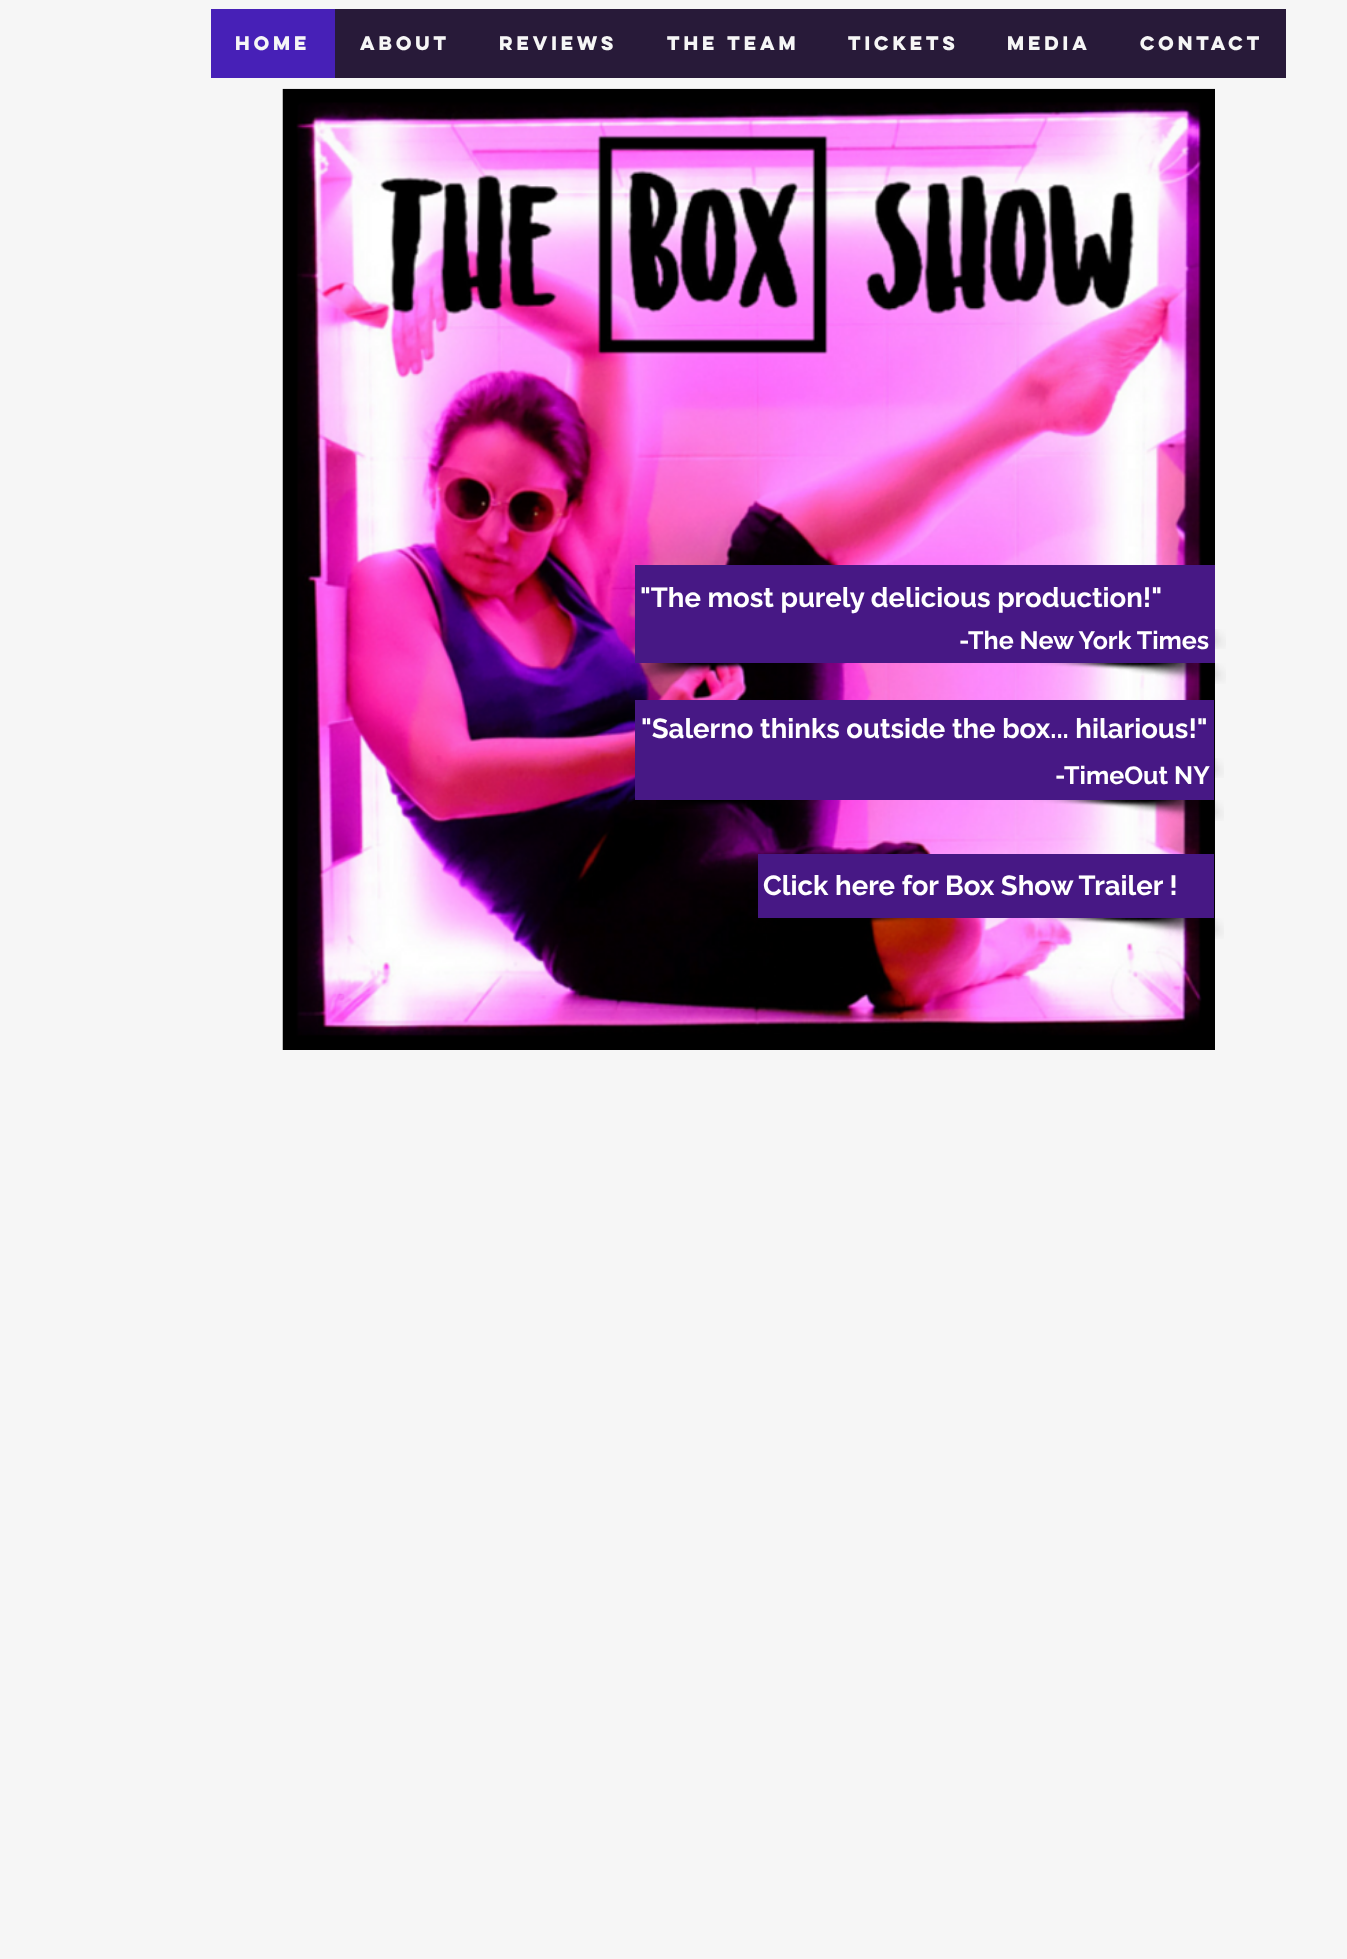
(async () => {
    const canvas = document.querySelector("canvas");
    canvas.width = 1347;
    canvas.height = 1959;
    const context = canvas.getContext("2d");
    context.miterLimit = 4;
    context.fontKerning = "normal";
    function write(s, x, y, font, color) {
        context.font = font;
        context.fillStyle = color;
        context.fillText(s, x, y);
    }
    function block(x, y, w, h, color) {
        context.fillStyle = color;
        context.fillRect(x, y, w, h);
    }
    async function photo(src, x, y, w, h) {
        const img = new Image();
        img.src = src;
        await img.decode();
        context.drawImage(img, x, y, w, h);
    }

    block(0, 0, 1347, 1959, "rgb(246, 246, 246)");
    block(335, 9, 951, 69, "rgb(40, 26, 57)");
    block(211, 9, 124, 69, "rgb(71, 32, 183)");
    write("HOME", 235, 50, "bold 17.5px 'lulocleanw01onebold'", "rgb(246, 246, 246)");
    write("ABOUT", 360, 50, "bold 17.5px 'lulocleanw01onebold'", "rgb(246, 246, 246)");
    write("REVIEWS", 499, 50, "bold 17.5px 'lulocleanw01onebold'", "rgb(246, 246, 246)");
    write("THE TEAM", 667, 50, "bold 17.5px 'lulocleanw01onebold'", "rgb(246, 246, 246)");
    write("TICKETS", 848, 50, "bold 17.5px 'lulocleanw01onebold'", "rgb(246, 246, 246)");
    write("MEDIA", 1007, 50, "bold 17.5px 'lulocleanw01onebold'", "rgb(246, 246, 246)");
    write("CONTACT", 1140, 50, "bold 17.5px 'lulocleanw01onebold'", "rgb(246, 246, 246)");
    await photo("media/1.png", 282, 88, 933, 962);
    block(635, 565, 580, 98, "rgb(71, 24, 133)");
    write("\"The most purely delicious production!\"", 640, 607, "bold 27.5px Raleway", "rgb(255, 255, 255)");
    await photo("media/2.png", 624, 629, 11, 20);
    await photo("media/3.png", 1215, 629, 11, 20);
    write("-The New York Times", 959, 649, "bold 25px Raleway", "rgb(255, 255, 255)");
    await photo("media/4.png", 626, 663, 117, 21);
    await photo("media/5.png", 1040, 663, 186, 21);
    block(635, 700, 579, 100, "rgb(71, 24, 133)");
    write("\"Salerno thinks outside the box... hilarious!\"", 641, 738, "bold 27.5px Raleway", "rgb(255, 255, 255)");
    await photo("media/6.png", 624, 758, 11, 20);
    await photo("media/7.png", 1214, 758, 10, 20);
    write("-TimeOut NY", 1055, 784, "bold 25px Raleway", "rgb(255, 255, 255)");
    await photo("media/8.png", 656, 800, 89, 9);
    await photo("media/9.png", 1033, 800, 191, 21);
    block(758, 854, 456, 64, "rgb(71, 24, 133)");
    write("Click here for Box Show Trailer !", 763, 895, "bold 27.5px Raleway", "rgb(255, 255, 255)");
    await photo("media/10.png", 869, 918, 61, 5);
    await photo("media/11.png", 1039, 918, 185, 21);
})();
